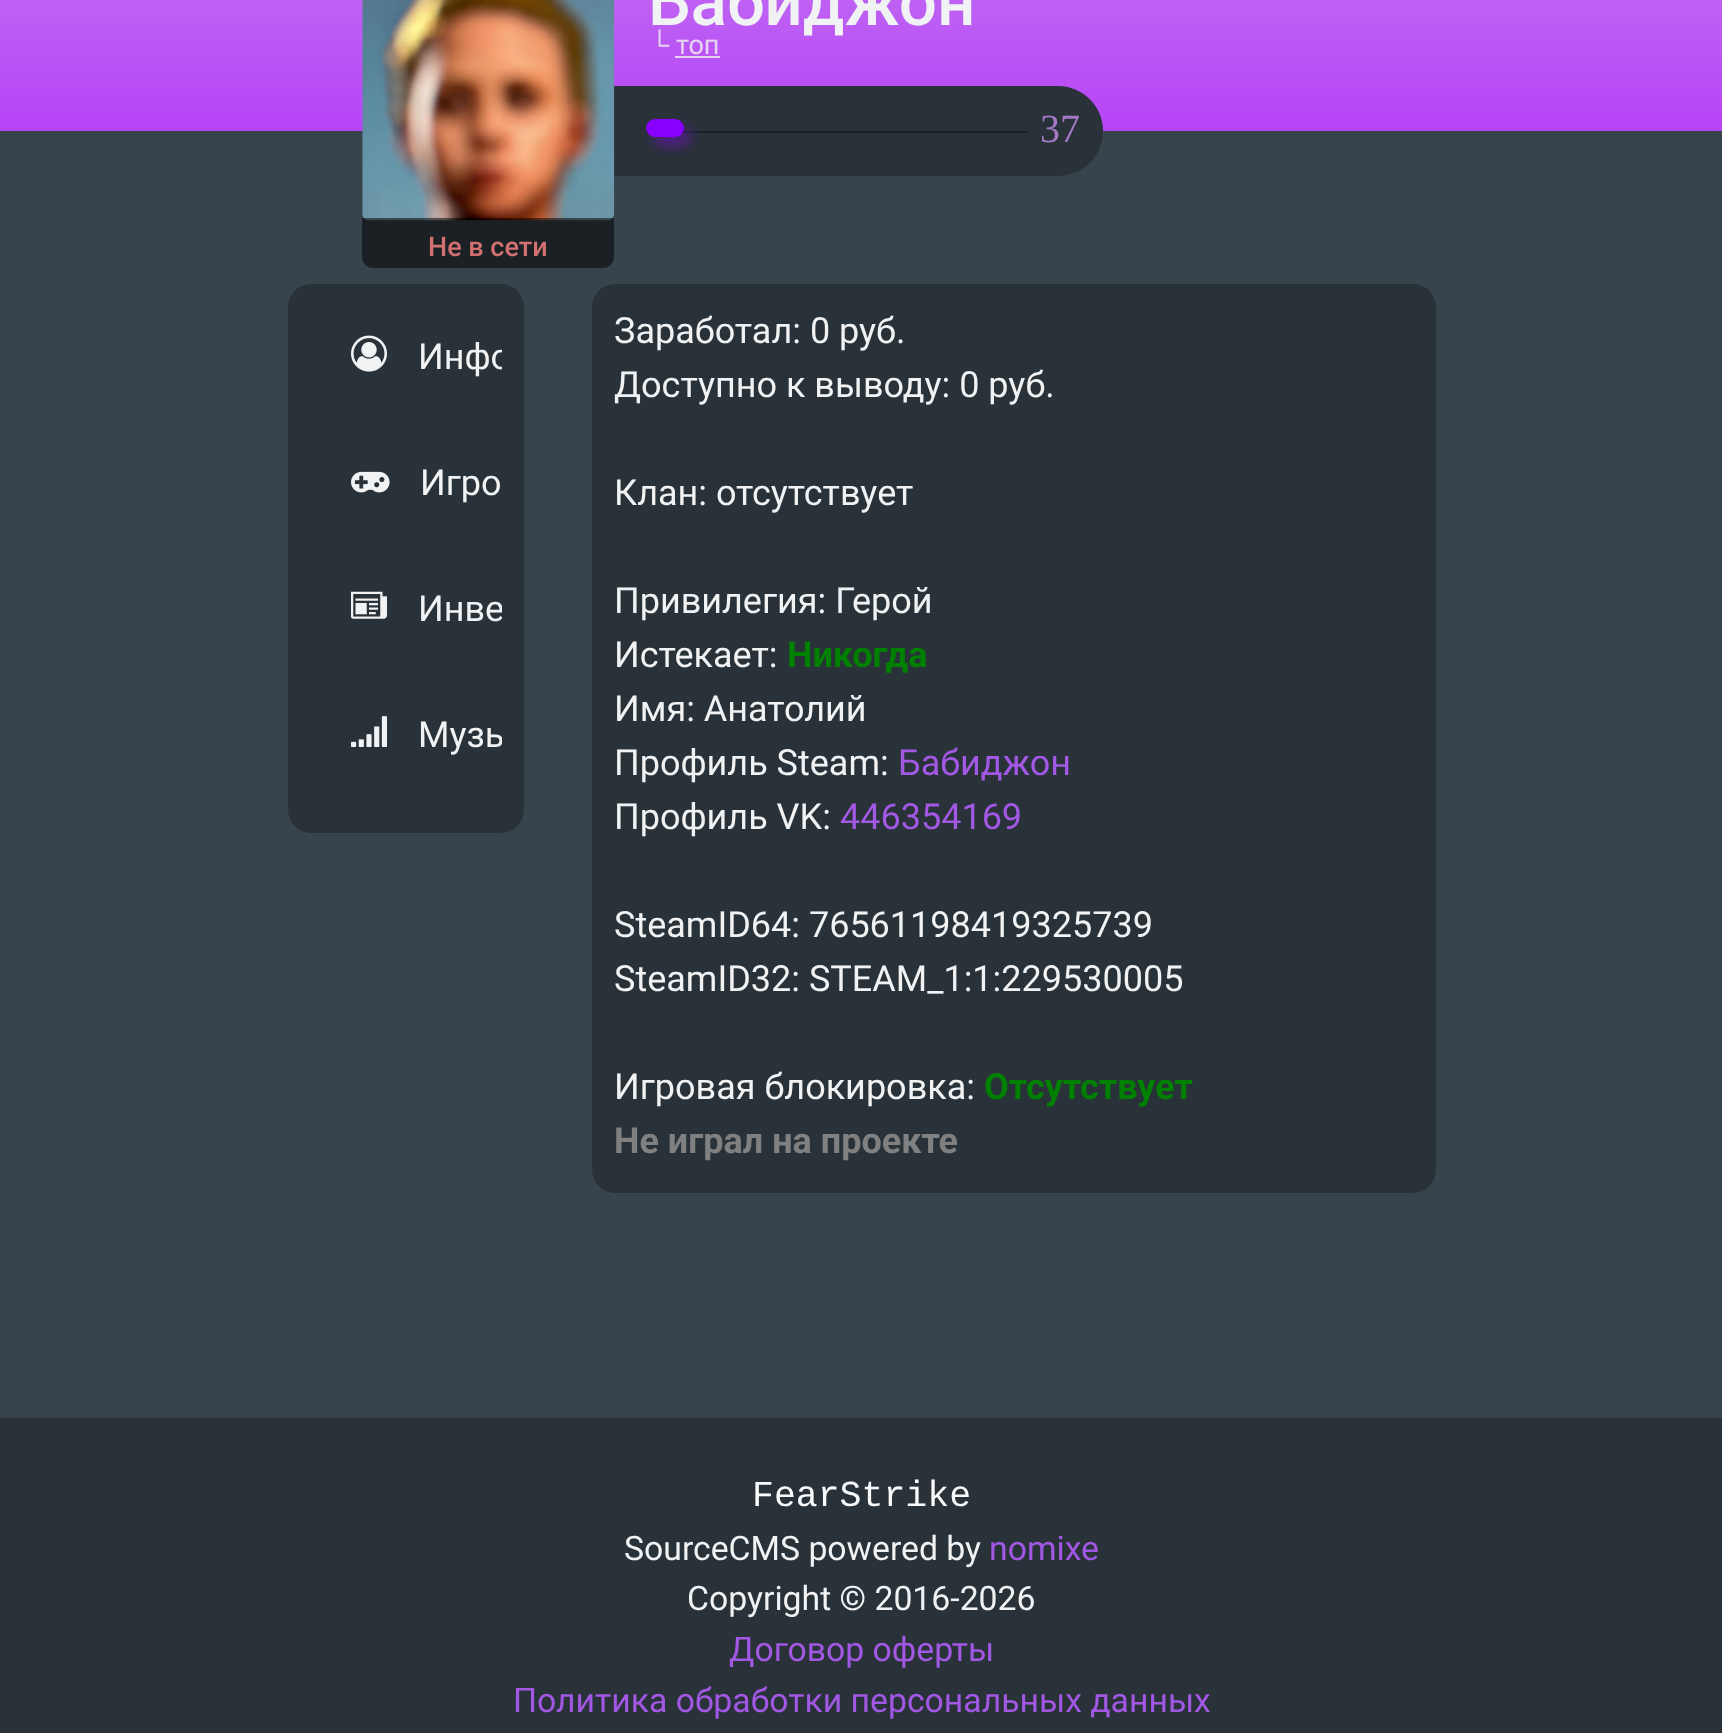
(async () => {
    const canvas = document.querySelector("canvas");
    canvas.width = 1722;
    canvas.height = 1733;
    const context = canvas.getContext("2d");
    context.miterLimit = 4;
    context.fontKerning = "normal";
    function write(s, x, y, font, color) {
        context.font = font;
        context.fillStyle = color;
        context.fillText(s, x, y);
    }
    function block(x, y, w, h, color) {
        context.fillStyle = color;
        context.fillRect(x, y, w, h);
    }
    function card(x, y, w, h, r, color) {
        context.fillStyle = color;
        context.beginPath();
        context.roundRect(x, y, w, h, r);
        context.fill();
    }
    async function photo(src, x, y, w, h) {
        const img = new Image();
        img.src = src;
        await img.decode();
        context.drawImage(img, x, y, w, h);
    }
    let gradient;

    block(0, 0, 1722, 1733, "rgb(56, 68, 76)");
    gradient = context.createLinearGradient(862, -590, 862, 131);
    gradient.addColorStop(0, "rgb(228, 228, 228)");
    gradient.addColorStop(1, "rgb(182, 68, 247)");
    context.fillStyle = gradient;
    context.fillRect(0, 0, 1722, 131);
    write("Бабиджон", 648, 25, "500 67.5px Roboto", "rgb(240, 242, 243)");
    write("└", 650, 54, "27px Liberation Sans", "rgb(230, 211, 243)");
    write("топ", 676, 54, "27px Roboto", "rgb(230, 211, 243)");
    block(675, 56, 45, 2, "rgb(229, 211, 243)");
    context.fillStyle = "rgb(41, 50, 56)";
    context.beginPath();
    context.roundRect(608, 86, 495, 90, [0, 45, 45, 0]);
    context.fill();
    card(646, 131, 382, 2, 1, "rgb(27, 34, 38)");
    context.fillStyle = "rgba(136, 0, 255, 0.43)";
    context.filter = "blur(7px)";
    context.beginPath();
    context.roundRect(653, 128, 38, 18, 9);
    context.fill();
    context.filter = "none";
    card(646, 119, 38, 18, 9, "rgb(136, 0, 255)");
    write("37", 1040, 142, "40px Liberation Serif", "rgb(164, 121, 197)");
    await photo("media/1.png", 362, 0, 253, 221);
    context.fillStyle = "rgba(0, 0, 0, 0.53)";
    context.beginPath();
    context.roundRect(362, 218, 252, 50, [0, 0, 11, 11]);
    context.fill();
    write("Не в сети", 428, 256, "500 27px Roboto", "rgb(211, 112, 112)");
    card(288, 284, 236, 549, 23, "rgb(41, 50, 56)");
    await photo("media/2.png", 351, 335, 36, 37);
    context.save();
    context.beginPath();
    context.roundRect(311, 306, 191, 101, 7);
    context.clip();
    write("Инфо", 418, 369, "36px Roboto", "rgb(240, 242, 243)");
    context.restore();
    await photo("media/3.png", 351, 471, 39, 22);
    write("Игро", 420, 495, "36px Roboto", "rgb(240, 242, 243)");
    await photo("media/4.png", 351, 591, 36, 28);
    context.save();
    context.beginPath();
    context.roundRect(311, 558, 191, 101, 7);
    context.clip();
    write("Инве", 418, 621, "36px Roboto", "rgb(240, 242, 243)");
    context.restore();
    await photo("media/5.png", 351, 716, 36, 31);
    context.save();
    context.beginPath();
    context.roundRect(311, 684, 191, 101, 7);
    context.clip();
    write("Музы", 418, 747, "36px Roboto", "rgb(240, 242, 243)");
    context.restore();
    card(592, 284, 844, 909, 23, "rgb(41, 50, 56)");
    write("Заработал: 0 руб.", 614, 343, "36px Roboto", "rgb(240, 242, 243)");
    write("Доступно к выводу: 0 руб.", 614, 397, "36px Roboto", "rgb(240, 242, 243)");
    write("Клан: отсутствует", 614, 505, "36px Roboto", "rgb(240, 242, 243)");
    write("Привилегия: Герой", 614, 613, "36px Roboto", "rgb(240, 242, 243)");
    write("Истекает:", 614, 667, "36px Roboto", "rgb(240, 242, 243)");
    write("Никогда", 787, 667, "bold 36px Roboto", "rgb(0, 128, 0)");
    write("Имя: Анатолий", 614, 721, "36px Roboto", "rgb(240, 242, 243)");
    write("Профиль Steam:", 614, 775, "36px Roboto", "rgb(240, 242, 243)");
    write("Бабиджон", 898, 775, "36px Roboto", "rgb(162, 88, 229)");
    write("Профиль VK:", 614, 829, "36px Roboto", "rgb(240, 242, 243)");
    write("446354169", 840, 829, "36px Roboto", "rgb(162, 88, 229)");
    write("SteamID64: 76561198419325739", 614, 937, "36px Roboto", "rgb(240, 242, 243)");
    write("SteamID32: STEAM_1:1:229530005", 614, 991, "36px Roboto", "rgb(240, 242, 243)");
    write("Игровая блокировка:", 614, 1099, "36px Roboto", "rgb(240, 242, 243)");
    write("Отсутствует", 984, 1099, "bold 36px Roboto", "rgb(0, 128, 0)");
    write("Не играл на проекте", 614, 1153, "bold 36px Roboto", "rgb(128, 128, 128)");
    block(0, 1418, 1722, 315, "rgb(41, 50, 56)");
    write("FearStrike", 752, 1506, "36.5px Liberation Mono", "rgb(248, 250, 252)");
    write("SourceCMS powered by", 624, 1560, "33.75px Roboto", "rgb(240, 242, 243)");
    write("nomixe", 989, 1560, "33.75px Roboto", "rgb(162, 88, 229)");
    write("Copyright © 2016-2026", 687, 1610, "33.75px Roboto", "rgb(240, 242, 243)");
    write("Договор оферты", 729, 1661, "33.75px Roboto", "rgb(162, 88, 229)");
    write("Политика обработки персональных данных", 513, 1712, "33.75px Roboto", "rgb(162, 88, 229)");
})();
